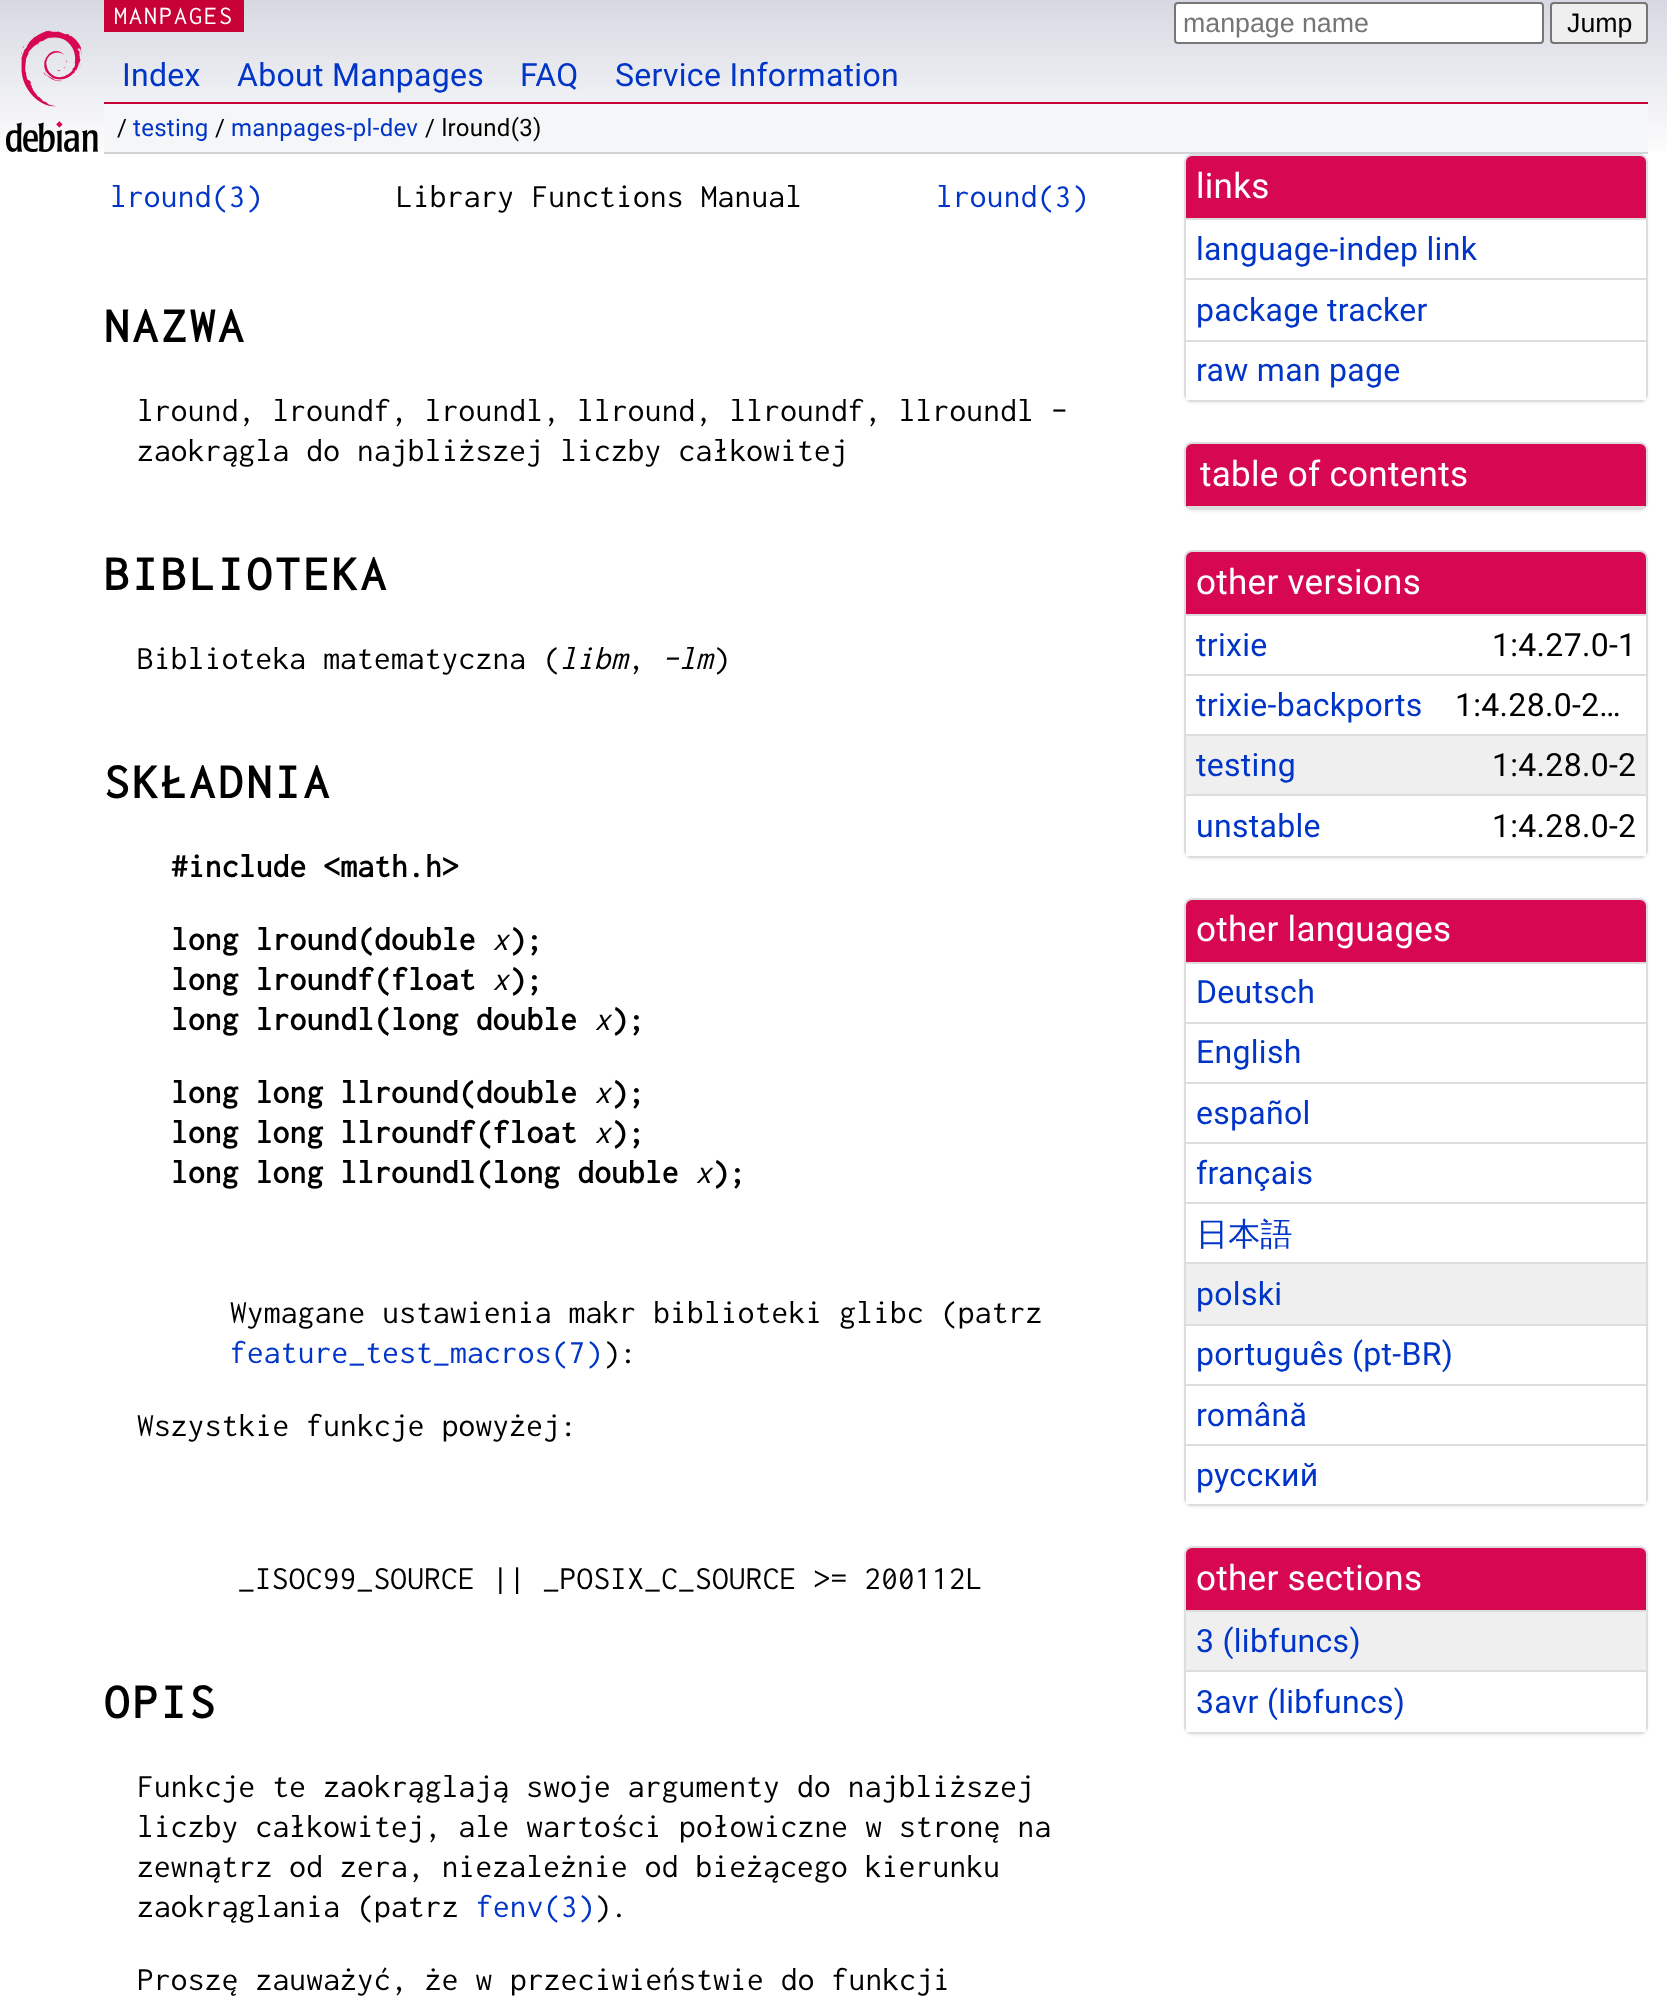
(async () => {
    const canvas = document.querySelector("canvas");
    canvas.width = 1667;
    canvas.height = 2004;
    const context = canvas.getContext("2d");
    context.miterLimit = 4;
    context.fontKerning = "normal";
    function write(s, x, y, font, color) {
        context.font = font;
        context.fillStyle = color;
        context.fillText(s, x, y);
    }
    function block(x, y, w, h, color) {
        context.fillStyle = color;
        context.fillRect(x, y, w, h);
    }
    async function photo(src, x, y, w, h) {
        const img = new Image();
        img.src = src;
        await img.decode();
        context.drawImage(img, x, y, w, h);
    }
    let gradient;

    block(0, 0, 1667, 2004, "rgb(255, 255, 255)");
    gradient = context.createLinearGradient(834, 0, 834, 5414);
    gradient.addColorStop(0, "rgb(215, 217, 226)");
    gradient.addColorStop(0.03, "rgb(255, 255, 255)");
    context.fillStyle = gradient;
    context.fillRect(0, 0, 1667, 152);
    block(104, 0, 140, 32, "rgb(199, 0, 54)");
    context.letterSpacing = "2px";
    write("MANPAGES", 114, 24, "26px Inconsolata", "rgb(255, 255, 255)");
    context.beginPath();
    context.roundRect(1175, 3, 368, 40, 3);
    context.fill();
    context.strokeStyle = "rgb(118, 118, 118)";
    context.lineWidth = 2;
    context.stroke();
    context.letterSpacing = "0px";
    write("manpage name", 1183, 32, "26.75px Liberation Sans", "rgb(117, 117, 117)");
    context.fillStyle = "rgb(239, 239, 239)";
    context.beginPath();
    context.roundRect(1551, 3, 96, 40, 3);
    context.fill();
    context.stroke();
    write("Jump", 1567, 32, "26.75px Liberation Sans", "rgb(0, 0, 0)");
    await photo("media/1.png", 6, 30, 92, 122);
    block(104, 102, 1544, 2, "rgb(199, 0, 54)");
    context.letterSpacing = "0.3px";
    write("Index", 122, 86, "32px Roboto", "rgb(0, 53, 199)");
    write("About Manpages", 237, 86, "32px Roboto", "rgb(0, 53, 199)");
    write("FAQ", 520, 86, "32px Roboto", "rgb(0, 53, 199)");
    write("Service Information", 615, 86, "32px Roboto", "rgb(0, 53, 199)");
    block(104, 104, 1544, 48, "rgb(245, 246, 247)");
    block(104, 152, 1544, 2, "rgb(210, 211, 215)");
    write("/", 117, 136, "24px Roboto", "rgb(0, 0, 0)");
    write("testing", 133, 136, "24px Roboto", "rgb(0, 53, 199)");
    write("/", 215, 136, "24px Roboto", "rgb(0, 0, 0)");
    write("manpages-pl-dev", 231, 136, "24px Roboto", "rgb(0, 53, 199)");
    write("/ lround(3)", 425, 136, "24px Roboto", "rgb(0, 0, 0)");
    write("lround(3)", 110, 207, "33.25px Inconsolata", "rgb(0, 53, 199)");
    write("Library Functions Manual", 396, 207, "33.25px Inconsolata", "rgb(0, 0, 0)");
    write("lround(3)", 936, 207, "33.25px Inconsolata", "rgb(0, 53, 199)");
    context.letterSpacing = "3.5px";
    write("NAZWA", 104, 342, "bold 50px Inconsolata", "rgb(0, 0, 0)");
    context.letterSpacing = "0.3px";
    write("lround, lroundf, lroundl, llround, llroundf, llroundl -", 137, 421, "33.25px Inconsolata", "rgb(0, 0, 0)");
    write("zaokrągla do najbliższej liczby całkowitej", 137, 461, "33.25px Inconsolata", "rgb(0, 0, 0)");
    context.letterSpacing = "3.5px";
    write("BIBLIOTEKA", 104, 590, "bold 50px Inconsolata", "rgb(0, 0, 0)");
    context.letterSpacing = "0.3px";
    write("Biblioteka matematyczna (", 137, 669, "33.25px Inconsolata", "rgb(0, 0, 0)");
    write("libm", 560, 669, "italic 33.25px Inconsolata", "rgb(0, 0, 0)");
    write(",", 628, 669, "33.25px Inconsolata", "rgb(0, 0, 0)");
    write("-lm", 662, 669, "italic 33.25px Inconsolata", "rgb(0, 0, 0)");
    write(")", 713, 669, "33.25px Inconsolata", "rgb(0, 0, 0)");
    context.letterSpacing = "3.5px";
    write("SKŁADNIA", 104, 798, "bold 50px Inconsolata", "rgb(0, 0, 0)");
    context.letterSpacing = "0.3px";
    write("#include <math.h>", 171, 877, "bold 33.25px Inconsolata", "rgb(0, 0, 0)");
    write("long lround(double", 171, 950, "bold 33.25px Inconsolata", "rgb(0, 0, 0)");
    write("x", 492, 950, "italic 33.25px Inconsolata", "rgb(0, 0, 0)");
    write(");", 509, 950, "bold 33.25px Inconsolata", "rgb(0, 0, 0)");
    write("long lroundf(float", 171, 990, "bold 33.25px Inconsolata", "rgb(0, 0, 0)");
    write("x", 492, 990, "italic 33.25px Inconsolata", "rgb(0, 0, 0)");
    write(");", 509, 990, "bold 33.25px Inconsolata", "rgb(0, 0, 0)");
    write("long lroundl(long double", 171, 1030, "bold 33.25px Inconsolata", "rgb(0, 0, 0)");
    write("x", 594, 1030, "italic 33.25px Inconsolata", "rgb(0, 0, 0)");
    write(");", 611, 1030, "bold 33.25px Inconsolata", "rgb(0, 0, 0)");
    write("long long llround(double", 171, 1103, "bold 33.25px Inconsolata", "rgb(0, 0, 0)");
    write("x", 594, 1103, "italic 33.25px Inconsolata", "rgb(0, 0, 0)");
    write(");", 611, 1103, "bold 33.25px Inconsolata", "rgb(0, 0, 0)");
    write("long long llroundf(float", 171, 1143, "bold 33.25px Inconsolata", "rgb(0, 0, 0)");
    write("x", 594, 1143, "italic 33.25px Inconsolata", "rgb(0, 0, 0)");
    write(");", 611, 1143, "bold 33.25px Inconsolata", "rgb(0, 0, 0)");
    write("long long llroundl(long double", 171, 1183, "bold 33.25px Inconsolata", "rgb(0, 0, 0)");
    write("x", 695, 1183, "italic 33.25px Inconsolata", "rgb(0, 0, 0)");
    write(");", 712, 1183, "bold 33.25px Inconsolata", "rgb(0, 0, 0)");
    write("Wymagane ustawienia makr biblioteki glibc (patrz", 230, 1323, "33.25px Inconsolata", "rgb(0, 0, 0)");
    write("feature_test_macros(7)", 230, 1363, "33.25px Inconsolata", "rgb(0, 53, 199)");
    write("):", 603, 1363, "33.25px Inconsolata", "rgb(0, 0, 0)");
    write("Wszystkie funkcje powyżej:", 137, 1436, "33.25px Inconsolata", "rgb(0, 0, 0)");
    write("_ISOC99_SOURCE || _POSIX_C_SOURCE >= 200112L", 238, 1589, "33.25px Inconsolata", "rgb(0, 0, 0)");
    context.letterSpacing = "3.5px";
    write("OPIS", 104, 1718, "bold 50px Inconsolata", "rgb(0, 0, 0)");
    context.letterSpacing = "0.3px";
    write("Funkcje te zaokrąglają swoje argumenty do najbliższej", 137, 1797, "33.25px Inconsolata", "rgb(0, 0, 0)");
    write("liczby całkowitej, ale wartości", 137, 1837, "33.25px Inconsolata", "rgb(0, 0, 0)");
    write("połowiczne w stronę na", 679, 1837, "33.25px Inconsolata", "rgb(0, 0, 0)");
    write("zewnątrz od zera, niezależnie od bieżącego kierunku", 137, 1877, "33.25px Inconsolata", "rgb(0, 0, 0)");
    write("zaokrąglania (patrz", 137, 1917, "33.25px Inconsolata", "rgb(0, 0, 0)");
    write("fenv(3)", 476, 1917, "33.25px Inconsolata", "rgb(0, 53, 199)");
    write(").", 594, 1917, "33.25px Inconsolata", "rgb(0, 0, 0)");
    write("Proszę zauważyć, że w", 137, 1990, "33.25px Inconsolata", "rgb(0, 0, 0)");
    write("przeciwieństwie do funkcji", 510, 1990, "33.25px Inconsolata", "rgb(0, 0, 0)");
    context.fillStyle = "rgba(0, 0, 0, 0.05)";
    context.filter = "blur(1px)";
    context.beginPath();
    context.roundRect(1184, 156, 464, 248, 8);
    context.fill();
    context.filter = "none";
    context.beginPath();
    context.roundRect(1185, 155, 462, 246, 7);
    context.strokeStyle = "rgb(221, 221, 221)";
    context.stroke();
    context.fillStyle = "rgb(215, 7, 81)";
    context.beginPath();
    context.roundRect(1186, 156, 460, 64, [6, 6, 0, 0]);
    context.fill();
    write("links", 1196, 198, "35px Roboto", "rgb(255, 255, 255)");
    block(1186, 220, 460, 180, "rgb(255, 255, 255)");
    block(1186, 218, 460, 2, "rgb(221, 221, 221)");
    block(1186, 278, 460, 2, "rgb(221, 221, 221)");
    write("language-indep link", 1196, 260, "32px Roboto", "rgb(0, 53, 199)");
    block(1186, 340, 460, 2, "rgb(221, 221, 221)");
    write("package tracker", 1196, 321, "32px Roboto", "rgb(0, 53, 199)");
    write("raw man page", 1196, 381, "32px Roboto", "rgb(0, 53, 199)");
    context.fillStyle = "rgba(0, 0, 0, 0.05)";
    context.filter = "blur(1px)";
    context.beginPath();
    context.roundRect(1184, 444, 464, 68, 8);
    context.fill();
    context.filter = "none";
    context.beginPath();
    context.roundRect(1185, 443, 462, 66, 7);
    context.stroke();
    context.fillStyle = "rgb(215, 7, 81)";
    context.beginPath();
    context.roundRect(1186, 444, 460, 64, [6, 6, 0, 0]);
    context.fill();
    block(1186, 506, 460, 2, "rgb(221, 221, 221)");
    write("table of contents", 1200, 486, "35px Roboto", "rgb(255, 255, 255)");
    context.fillStyle = "rgba(0, 0, 0, 0.05)";
    context.filter = "blur(1px)";
    context.beginPath();
    context.roundRect(1184, 552, 464, 308, 8);
    context.fill();
    context.filter = "none";
    context.beginPath();
    context.roundRect(1185, 551, 462, 306, 7);
    context.stroke();
    context.fillStyle = "rgb(215, 7, 81)";
    context.beginPath();
    context.roundRect(1186, 552, 460, 64, [6, 6, 0, 0]);
    context.fill();
    write("other versions", 1196, 594, "35px Roboto", "rgb(255, 255, 255)");
    block(1186, 616, 460, 240, "rgb(255, 255, 255)");
    block(1186, 614, 460, 2, "rgb(221, 221, 221)");
    block(1186, 674, 460, 2, "rgb(221, 221, 221)");
    write("trixie", 1196, 656, "32px Roboto", "rgb(0, 53, 199)");
    write("1:4.27.0-1", 1492, 656, "32px Roboto", "rgb(0, 0, 0)");
    block(1186, 734, 460, 2, "rgb(221, 221, 221)");
    write("trixie-backports", 1196, 716, "32px Roboto", "rgb(0, 53, 199)");
    write("1:4.28.0-2…", 1455, 716, "32px Roboto", "rgb(0, 0, 0)");
    block(1186, 736, 460, 58, "rgb(239, 239, 239)");
    block(1186, 794, 460, 2, "rgb(221, 221, 221)");
    write("testing", 1196, 776, "32px Roboto", "rgb(0, 53, 199)");
    write("1:4.28.0-2", 1492, 776, "32px Roboto", "rgb(0, 0, 0)");
    write("unstable", 1196, 837, "32px Roboto", "rgb(0, 53, 199)");
    write("1:4.28.0-2", 1492, 837, "32px Roboto", "rgb(0, 0, 0)");
    context.fillStyle = "rgba(0, 0, 0, 0.05)";
    context.filter = "blur(1px)";
    context.beginPath();
    context.roundRect(1184, 900, 464, 608, 8);
    context.fill();
    context.filter = "none";
    context.beginPath();
    context.roundRect(1185, 899, 462, 606, 7);
    context.stroke();
    context.fillStyle = "rgb(215, 7, 81)";
    context.beginPath();
    context.roundRect(1186, 900, 460, 64, [6, 6, 0, 0]);
    context.fill();
    write("other languages", 1196, 941, "35px Roboto", "rgb(255, 255, 255)");
    block(1186, 964, 460, 540, "rgb(255, 255, 255)");
    block(1186, 962, 460, 2, "rgb(221, 221, 221)");
    block(1186, 1022, 460, 2, "rgb(221, 221, 221)");
    write("Deutsch", 1196, 1003, "32px Roboto", "rgb(0, 53, 199)");
    block(1186, 1082, 460, 2, "rgb(221, 221, 221)");
    write("English", 1196, 1063, "32px Roboto", "rgb(0, 53, 199)");
    block(1186, 1142, 460, 2, "rgb(221, 221, 221)");
    write("español", 1196, 1124, "32px Roboto", "rgb(0, 53, 199)");
    block(1186, 1202, 460, 2, "rgb(221, 221, 221)");
    write("français", 1196, 1184, "32px Roboto", "rgb(0, 53, 199)");
    block(1186, 1262, 460, 2, "rgb(221, 221, 221)");
    write("日本語", 1196, 1245, "500 32px WenQuanYi Zen Hei", "rgb(0, 53, 199)");
    block(1186, 1264, 460, 60, "rgb(239, 239, 239)");
    block(1186, 1324, 460, 2, "rgb(221, 221, 221)");
    write("polski", 1196, 1305, "32px Roboto", "rgb(0, 53, 199)");
    block(1186, 1384, 460, 2, "rgb(221, 221, 221)");
    write("português (pt-BR)", 1196, 1365, "32px Roboto", "rgb(0, 53, 199)");
    block(1186, 1444, 460, 2, "rgb(221, 221, 221)");
    write("română", 1196, 1426, "32px Roboto", "rgb(0, 53, 199)");
    write("русский", 1196, 1486, "32px Roboto", "rgb(0, 53, 199)");
    context.fillStyle = "rgba(0, 0, 0, 0.05)";
    context.filter = "blur(1px)";
    context.beginPath();
    context.roundRect(1184, 1548, 464, 188, 8);
    context.fill();
    context.filter = "none";
    context.beginPath();
    context.roundRect(1185, 1547, 462, 186, 7);
    context.stroke();
    context.fillStyle = "rgb(215, 7, 81)";
    context.beginPath();
    context.roundRect(1186, 1548, 460, 64, [6, 6, 0, 0]);
    context.fill();
    write("other sections", 1196, 1590, "35px Roboto", "rgb(255, 255, 255)");
    block(1186, 1672, 460, 60, "rgb(255, 255, 255)");
    block(1186, 1612, 460, 58, "rgb(239, 239, 239)");
    block(1186, 1610, 460, 2, "rgb(221, 221, 221)");
    block(1186, 1670, 460, 2, "rgb(221, 221, 221)");
    write("3 (libfuncs)", 1196, 1652, "32px Roboto", "rgb(0, 53, 199)");
    write("3avr (libfuncs)", 1196, 1713, "32px Roboto", "rgb(0, 53, 199)");
})();
